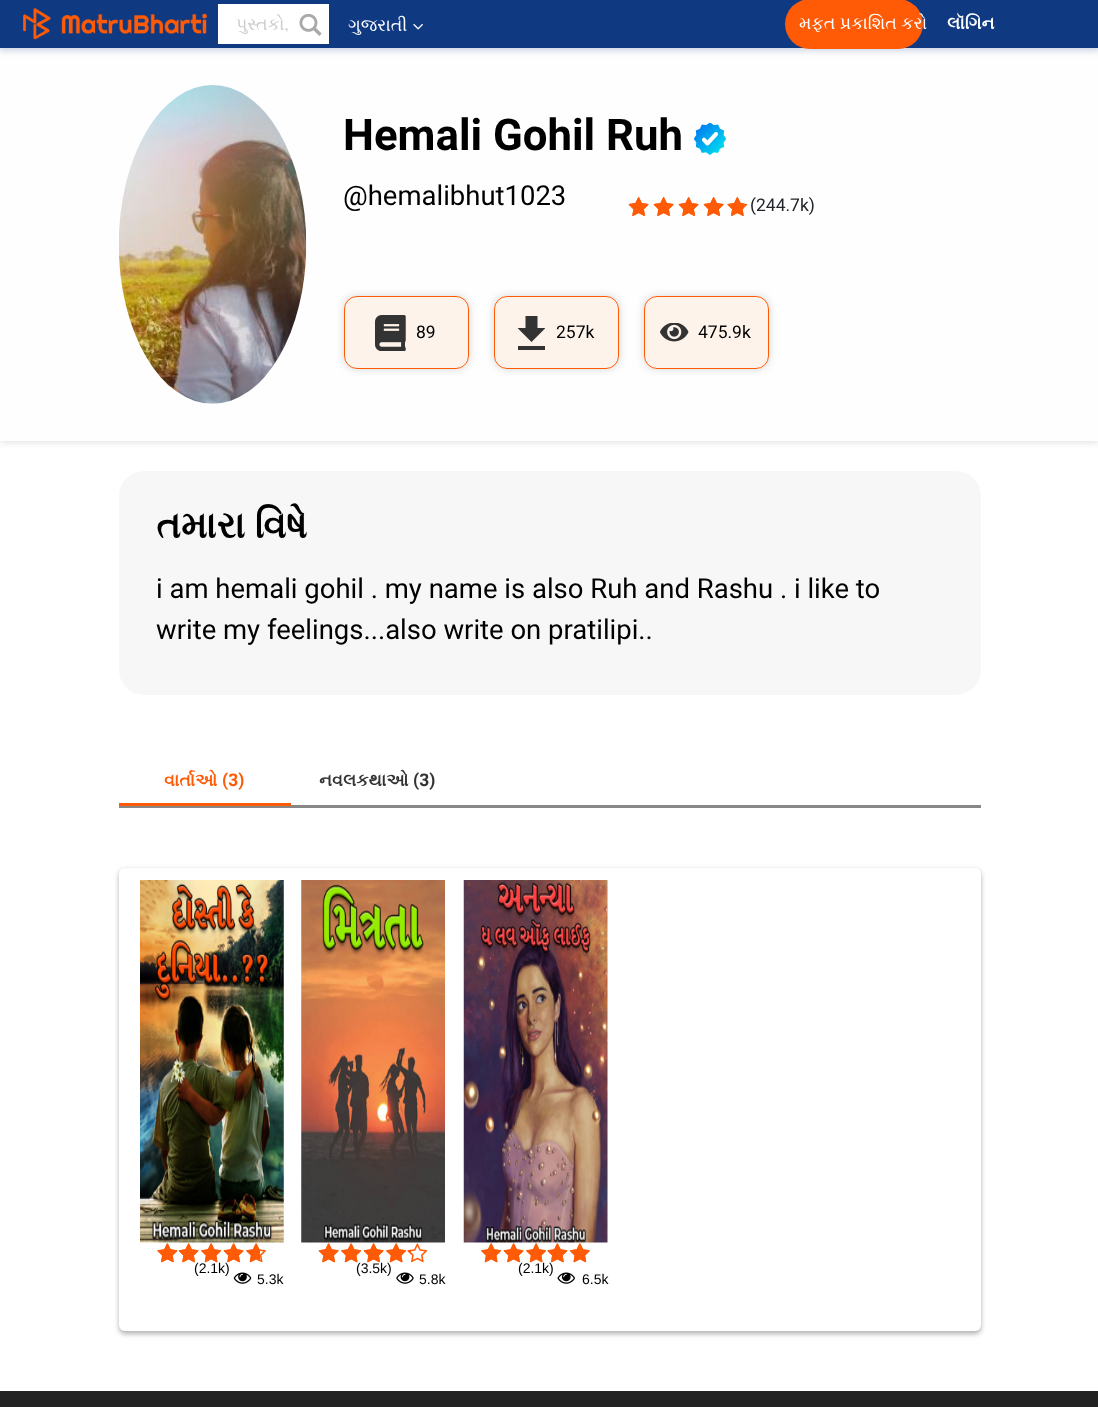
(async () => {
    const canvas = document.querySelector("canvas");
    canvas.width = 1098;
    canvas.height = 1407;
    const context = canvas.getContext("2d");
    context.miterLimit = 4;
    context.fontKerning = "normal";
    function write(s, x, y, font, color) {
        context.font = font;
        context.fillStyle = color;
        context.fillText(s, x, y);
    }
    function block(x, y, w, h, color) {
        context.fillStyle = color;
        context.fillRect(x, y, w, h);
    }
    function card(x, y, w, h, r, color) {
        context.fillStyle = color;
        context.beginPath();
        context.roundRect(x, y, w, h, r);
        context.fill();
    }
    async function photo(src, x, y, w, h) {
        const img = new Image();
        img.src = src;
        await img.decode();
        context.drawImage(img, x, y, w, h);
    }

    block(0, 0, 1098, 1407, "rgb(255, 255, 255)");
    context.fillStyle = "rgba(0, 0, 0, 0.16)";
    context.filter = "blur(4px)";
    context.beginPath();
    context.rect(0, 48, 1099, 393);
    context.fill();
    context.filter = "none";
    block(0, 48, 1098, 393, "rgb(254, 254, 254)");
    context.fillStyle = "rgba(15, 57, 129, 0.2)";
    context.filter = "blur(3px)";
    context.beginPath();
    context.rect(-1, 1, 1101, 50);
    context.fill();
    context.filter = "none";
    block(0, 0, 1098, 48, "rgb(15, 57, 129)");
    await photo("media/1.png", 23, 8, 184, 32);
    block(218, 4, 111, 40, "rgb(255, 255, 255)");
    context.save();
    context.beginPath();
    context.rect(233, 14, 62, 21);
    context.clip();
    write("પુસ્તકો,", 236, 30, "17.5px FreeSerif", "rgb(204, 204, 204)");
    context.restore();
    await photo("media/2.png", 299, 14, 23, 22);
    write("ગુજરાતી", 348, 31, "17.5px FreeSerif", "rgb(255, 255, 255)");
    await photo("media/3.png", 413, 23, 10, 7);
    card(785, -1, 138, 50, 25, "rgb(255, 90, 6)");
    write("મફત પ્રકાશિત કરો", 799, 29, "17.5px FreeSerif", "rgb(255, 255, 255)");
    write("લૉગિન", 947, 29, "bold 17.5px FreeSerif", "rgb(255, 255, 255)");
    await photo("media/4.png", 119, 85, 188, 319);
    write("Hemali Gohil Ruh", 343, 150, "bold 43.75px Roboto", "rgb(0, 0, 0)");
    await photo("media/5.png", 694, 123, 32, 32);
    write("@hemalibhut1023", 343, 205, "27.5px Roboto", "rgb(0, 0, 0)");
    await photo("media/6.png", 628, 197, 21, 19);
    await photo("media/6.png", 653, 197, 21, 19);
    await photo("media/6.png", 678, 197, 21, 19);
    await photo("media/6.png", 703, 197, 21, 19);
    await photo("media/7.png", 727, 197, 21, 19);
    await photo("media/8.png", 628, 197, 21, 19);
    await photo("media/8.png", 653, 197, 21, 19);
    await photo("media/8.png", 678, 197, 21, 19);
    await photo("media/8.png", 703, 197, 21, 19);
    await photo("media/9.png", 727, 197, 17, 19);
    write("(244.7k)", 750, 211, "17.5px Roboto", "rgb(33, 37, 41)");
    context.save();
    context.beginPath();
    context.moveTo(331, 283);
    context.lineTo(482, 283);
    context.lineTo(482, 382);
    context.lineTo(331, 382);
    context.closePath();
    context.moveTo(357, 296);
    context.lineTo(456, 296);
    context.bezierCurveTo(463, 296, 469, 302, 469, 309);
    context.lineTo(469, 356);
    context.bezierCurveTo(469, 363, 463, 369, 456, 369);
    context.lineTo(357, 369);
    context.bezierCurveTo(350, 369, 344, 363, 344, 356);
    context.lineTo(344, 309);
    context.bezierCurveTo(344, 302, 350, 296, 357, 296);
    context.closePath();
    context.clip("evenodd");
    context.fillStyle = "rgba(0, 0, 0, 0.16)";
    context.filter = "blur(4px)";
    context.beginPath();
    context.roundRect(344, 296, 125, 73, 13);
    context.fill();
    context.filter = "none";
    context.restore();
    context.fillStyle = "rgba(254, 241, 233, 0.89)";
    context.beginPath();
    context.roundRect(344.5, 296.5, 124, 72, 12.5);
    context.fill();
    context.strokeStyle = "rgb(255, 90, 6)";
    context.stroke();
    await photo("media/10.png", 375, 315, 31, 36);
    write("89", 416, 338, "17.5px Roboto", "rgb(0, 0, 0)");
    context.save();
    context.beginPath();
    context.moveTo(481, 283);
    context.lineTo(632, 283);
    context.lineTo(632, 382);
    context.lineTo(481, 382);
    context.closePath();
    context.moveTo(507, 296);
    context.lineTo(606, 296);
    context.bezierCurveTo(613, 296, 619, 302, 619, 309);
    context.lineTo(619, 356);
    context.bezierCurveTo(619, 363, 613, 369, 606, 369);
    context.lineTo(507, 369);
    context.bezierCurveTo(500, 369, 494, 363, 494, 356);
    context.lineTo(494, 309);
    context.bezierCurveTo(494, 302, 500, 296, 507, 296);
    context.closePath();
    context.clip("evenodd");
    context.fillStyle = "rgba(0, 0, 0, 0.16)";
    context.filter = "blur(4px)";
    context.beginPath();
    context.roundRect(494, 296, 125, 73, 13);
    context.fill();
    context.filter = "none";
    context.restore();
    context.fillStyle = "rgba(254, 241, 233, 0.89)";
    context.beginPath();
    context.roundRect(494.5, 296.5, 124, 72, 12.5);
    context.fill();
    context.stroke();
    context.save();
    context.beginPath();
    context.rect(518, 316, 27, 34);
    context.clip();
    context.fillStyle = "rgb(51, 51, 51)";
    context.beginPath();
    context.moveTo(545.5, 328);
    context.lineTo(537.5, 328);
    context.lineTo(537.5, 316);
    context.lineTo(525.5, 316);
    context.lineTo(525.5, 328);
    context.lineTo(517.5, 328);
    context.lineTo(531.5, 342);
    context.closePath();
    context.moveTo(517.5, 346);
    context.lineTo(517.5, 350);
    context.lineTo(545.5, 350);
    context.lineTo(545.5, 346);
    context.closePath();
    context.fill();
    context.restore();
    write("257k", 556, 338, "17.5px Roboto", "rgb(0, 0, 0)");
    context.save();
    context.beginPath();
    context.moveTo(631, 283);
    context.lineTo(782, 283);
    context.lineTo(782, 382);
    context.lineTo(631, 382);
    context.closePath();
    context.moveTo(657, 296);
    context.lineTo(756, 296);
    context.bezierCurveTo(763, 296, 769, 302, 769, 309);
    context.lineTo(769, 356);
    context.bezierCurveTo(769, 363, 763, 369, 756, 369);
    context.lineTo(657, 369);
    context.bezierCurveTo(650, 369, 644, 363, 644, 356);
    context.lineTo(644, 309);
    context.bezierCurveTo(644, 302, 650, 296, 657, 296);
    context.closePath();
    context.clip("evenodd");
    context.fillStyle = "rgba(0, 0, 0, 0.16)";
    context.filter = "blur(4px)";
    context.beginPath();
    context.roundRect(644, 296, 125, 73, 13);
    context.fill();
    context.filter = "none";
    context.restore();
    context.fillStyle = "rgba(254, 241, 233, 0.89)";
    context.beginPath();
    context.roundRect(644.5, 296.5, 124, 72, 12.5);
    context.fill();
    context.stroke();
    await photo("media/11.png", 660, 323, 29, 19);
    write("475.9k", 698, 338, "17.5px Roboto", "rgb(0, 0, 0)");
    card(119, 471, 862, 224, 25, "rgb(247, 247, 247)");
    write("તમારા વિષે", 156, 538, "bold 37.5px FreeSerif", "rgb(0, 0, 0)");
    write("i am hemali gohil . my name is also Ruh and Rashu . i like to", 156, 598, "27.5px Roboto", "rgb(0, 0, 0)");
    write("write my feelings...also write on pratilipi..", 156, 639, "27.5px Roboto", "rgb(0, 0, 0)");
    block(119, 805, 862, 3, "rgb(136, 136, 136)");
    block(119, 803, 172, 3, "rgb(255, 90, 6)");
    write("વાર્તાઓ", 164, 786, "bold 17.5px FreeSerif", "rgb(255, 90, 6)");
    write("(3)", 222, 786, "bold 17.5px Roboto", "rgb(255, 90, 6)");
    write("નવલકથાઓ", 319, 786, "bold 17.5px FreeSerif", "rgb(51, 51, 51)");
    write("(3)", 413, 786, "bold 17.5px Roboto", "rgb(51, 51, 51)");
    context.fillStyle = "rgba(0, 0, 0, 0.3)";
    context.filter = "blur(2.5px)";
    context.beginPath();
    context.roundRect(119, 870, 862, 464, 6);
    context.fill();
    context.filter = "none";
    card(119, 868, 862, 463, 6, "rgb(255, 255, 255)");
    await photo("media/12.png", 140, 880, 144, 363);
    await photo("media/13.png", 157, 1243, 21, 20);
    await photo("media/14.png", 178, 1243, 21, 20);
    await photo("media/15.png", 201, 1243, 20, 20);
    await photo("media/14.png", 223, 1243, 21, 20);
    await photo("media/15.png", 246, 1243, 20, 20);
    await photo("media/16.png", 157, 1243, 21, 20);
    await photo("media/17.png", 178, 1243, 21, 20);
    await photo("media/18.png", 201, 1243, 20, 20);
    await photo("media/17.png", 223, 1243, 21, 20);
    await photo("media/19.png", 246, 1243, 14, 20);
    write("(2.1k)", 194, 1273, "14px Liberation Sans", "rgb(0, 0, 0)");
    await photo("media/20.png", 233, 1272, 19, 12);
    write("5.3k", 257, 1284, "14px Liberation Sans", "rgb(0, 0, 0)");
    await photo("media/21.png", 301, 880, 144, 363);
    await photo("media/14.png", 318, 1243, 21, 20);
    await photo("media/15.png", 341, 1243, 20, 20);
    await photo("media/14.png", 363, 1243, 21, 20);
    await photo("media/15.png", 386, 1243, 20, 20);
    await photo("media/13.png", 407, 1243, 21, 20);
    await photo("media/17.png", 318, 1243, 21, 20);
    await photo("media/18.png", 341, 1243, 20, 20);
    await photo("media/17.png", 363, 1243, 21, 20);
    await photo("media/18.png", 386, 1243, 20, 20);
    await photo("media/22.png", 407, 1249, 4, 6);
    write("(3.5k)", 356, 1273, "14px Liberation Sans", "rgb(0, 0, 0)");
    await photo("media/23.png", 396, 1272, 18, 12);
    write("5.8k", 419, 1284, "14px Liberation Sans", "rgb(0, 0, 0)");
    await photo("media/24.png", 463, 880, 145, 363);
    await photo("media/15.png", 481, 1243, 20, 20);
    await photo("media/14.png", 503, 1243, 21, 20);
    await photo("media/15.png", 526, 1243, 20, 20);
    await photo("media/13.png", 547, 1243, 21, 20);
    await photo("media/25.png", 570, 1243, 20, 20);
    await photo("media/18.png", 481, 1243, 20, 20);
    await photo("media/17.png", 503, 1243, 21, 20);
    await photo("media/18.png", 526, 1243, 20, 20);
    await photo("media/16.png", 547, 1243, 21, 20);
    await photo("media/26.png", 570, 1243, 20, 20);
    write("(2.1k)", 518, 1273, "14px Liberation Sans", "rgb(0, 0, 0)");
    await photo("media/27.png", 557, 1272, 18, 12);
    write("6.5k", 582, 1284, "14px Liberation Sans", "rgb(0, 0, 0)");
    block(0, 1391, 1098, 16, "rgb(34, 34, 34)");
})();
